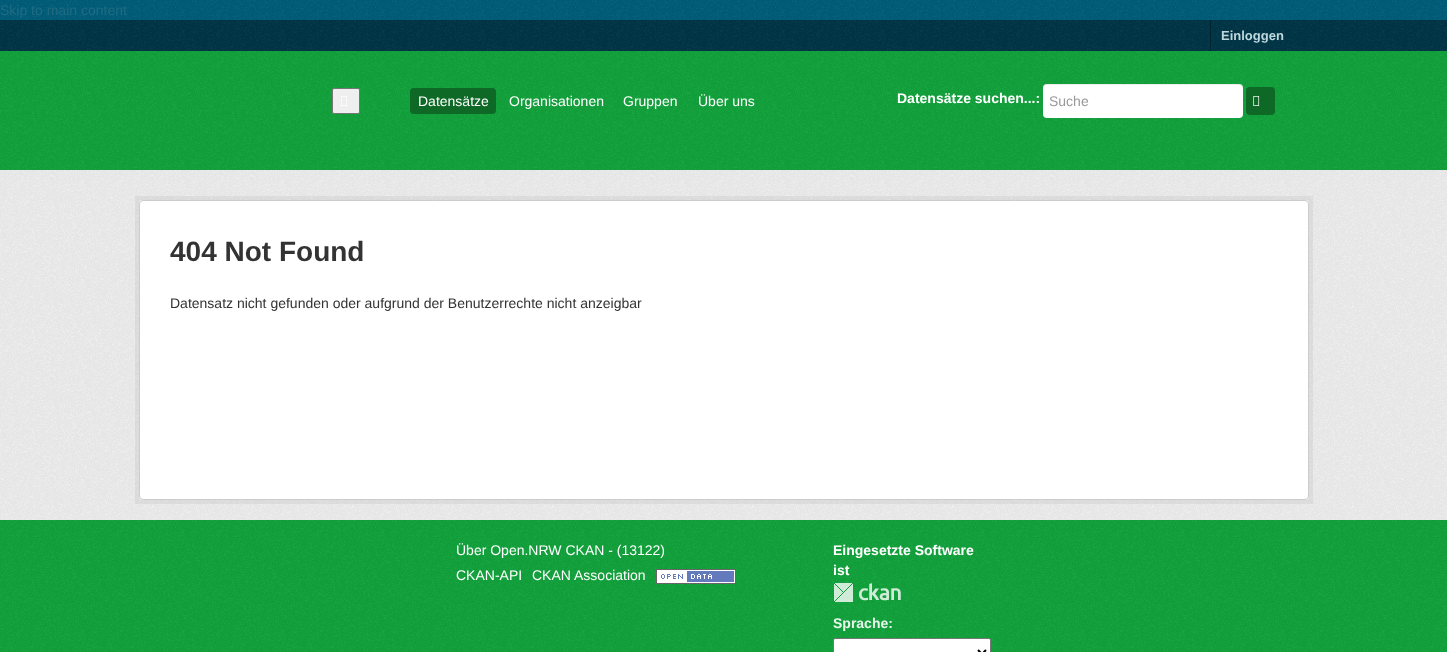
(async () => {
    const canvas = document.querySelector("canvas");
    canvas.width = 1447;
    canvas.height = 652;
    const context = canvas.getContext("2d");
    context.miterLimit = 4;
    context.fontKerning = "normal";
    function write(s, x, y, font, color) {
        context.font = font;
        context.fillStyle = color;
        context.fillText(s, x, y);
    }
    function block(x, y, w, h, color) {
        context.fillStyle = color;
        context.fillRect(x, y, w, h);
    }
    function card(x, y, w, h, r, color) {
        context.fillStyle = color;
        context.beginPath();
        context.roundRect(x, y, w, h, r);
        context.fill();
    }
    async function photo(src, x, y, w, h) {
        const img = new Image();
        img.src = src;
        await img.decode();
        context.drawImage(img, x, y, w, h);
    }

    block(0, 0, 1447, 652, "rgb(0, 93, 122)");
    await photo("media/1.png", 0, 0, 1447, 20);
    write("Skip to main content", 0, 15, "14px Liberation Sans", "rgb(32, 107, 130)");
    block(0, 20, 1447, 31, "rgb(0, 54, 71)");
    await photo("media/2.png", 0, 20, 1447, 31);
    block(1210, 20, 1, 31, "rgb(0, 35, 46)");
    write("Einloggen", 1221, 40, "bold 13px Liberation Sans", "rgb(191, 215, 222)");
    block(0, 51, 1447, 119, "rgb(18, 163, 59)");
    await photo("media/3.png", 0, 51, 1447, 119);
    context.fillStyle = "rgb(239, 239, 239)";
    context.beginPath();
    context.roundRect(332.5, 88.5, 27, 25, 1.5);
    context.fill();
    context.strokeStyle = "rgb(118, 118, 118)";
    context.stroke();
    await photo("media/4.png", 341, 96, 6, 10);
    card(410, 88, 86, 26, 4, "rgb(13, 105, 37)");
    write("Datensätze", 418, 106, "14px Liberation Sans", "rgb(255, 255, 255)");
    write("Organisationen", 509, 106, "14px Liberation Sans", "rgb(255, 255, 255)");
    write("Gruppen", 623, 106, "14px Liberation Sans", "rgb(255, 255, 255)");
    write("Über uns", 698, 106, "14px Liberation Sans", "rgb(255, 255, 255)");
    write("Datensätze suchen...:", 897, 103, "bold 14px Liberation Sans", "rgb(255, 255, 255)");
    card(1043, 84, 200, 34, 4, "rgb(255, 255, 255)");
    context.fillStyle = "rgba(0, 0, 0, 0.07)";
    context.beginPath();
    context.moveTo(1047, 85);
    context.lineTo(1239, 85);
    context.bezierCurveTo(1241, 85, 1243, 87, 1243, 89);
    context.lineTo(1243, 88);
    context.bezierCurveTo(1243, 86, 1241, 84, 1239, 84);
    context.lineTo(1047, 84);
    context.bezierCurveTo(1045, 84, 1043, 86, 1043, 88);
    context.lineTo(1043, 89);
    context.bezierCurveTo(1043, 87, 1045, 85, 1047, 85);
    context.closePath();
    context.fill();
    write("Suche", 1049, 106, "14px Liberation Sans", "rgb(153, 153, 153)");
    card(1246, 87, 29, 28, 4, "rgb(13, 105, 37)");
    await photo("media/5.png", 1253, 96, 7, 10);
    block(0, 170, 1447, 350, "rgb(238, 238, 238)");
    await photo("media/6.png", 0, 170, 1447, 350);
    context.strokeStyle = "rgba(0, 0, 0, 0.05)";
    context.lineWidth = 4;
    context.strokeRect(137, 198, 1174, 304);
    context.fillStyle = "rgb(255, 255, 255)";
    context.beginPath();
    context.roundRect(139.5, 200.5, 1169, 299, 3.5);
    context.fill();
    context.strokeStyle = "rgb(204, 204, 204)";
    context.lineWidth = 1;
    context.stroke();
    write("404 Not Found", 170, 261, "bold 28px Liberation Sans", "rgb(51, 51, 51)");
    write("Datensatz nicht gefunden oder aufgrund der Benutzerrechte nicht anzeigbar", 170, 308, "14px Liberation Sans", "rgb(51, 51, 51)");
    block(0, 520, 1447, 132, "rgb(18, 163, 59)");
    await photo("media/7.png", 0, 520, 1447, 132);
    write("Über Open.NRW CKAN - (13122)", 456, 555, "14px Liberation Sans", "rgb(255, 255, 255)");
    write("CKAN-API", 456, 580, "14px Liberation Sans", "rgb(255, 255, 255)");
    write("CKAN Association", 532, 580, "14px Liberation Sans", "rgb(255, 255, 255)");
    await photo("media/8.png", 656, 569, 80, 15);
    write("Eingesetzte Software", 833, 555, "bold 14px Liberation Sans", "rgb(255, 255, 255)");
    write("ist", 833, 575, "bold 14px Liberation Sans", "rgb(255, 255, 255)");
    await photo("media/9.png", 834, 583, 67, 19);
    write("Sprache:", 833, 628, "bold 14px Liberation Sans", "rgb(231, 245, 235)");
    context.fillStyle = "rgb(255, 255, 255)";
    context.beginPath();
    context.roundRect(833.5, 638.5, 157, 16, 1.5);
    context.fill();
    context.strokeStyle = "rgb(118, 118, 118)";
    context.stroke();
    context.beginPath();
    context.moveTo(978, 650);
    context.lineTo(982, 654);
    context.lineTo(986, 650);
    context.strokeStyle = "rgb(0, 0, 0)";
    context.lineWidth = 2;
    context.stroke();
})();
